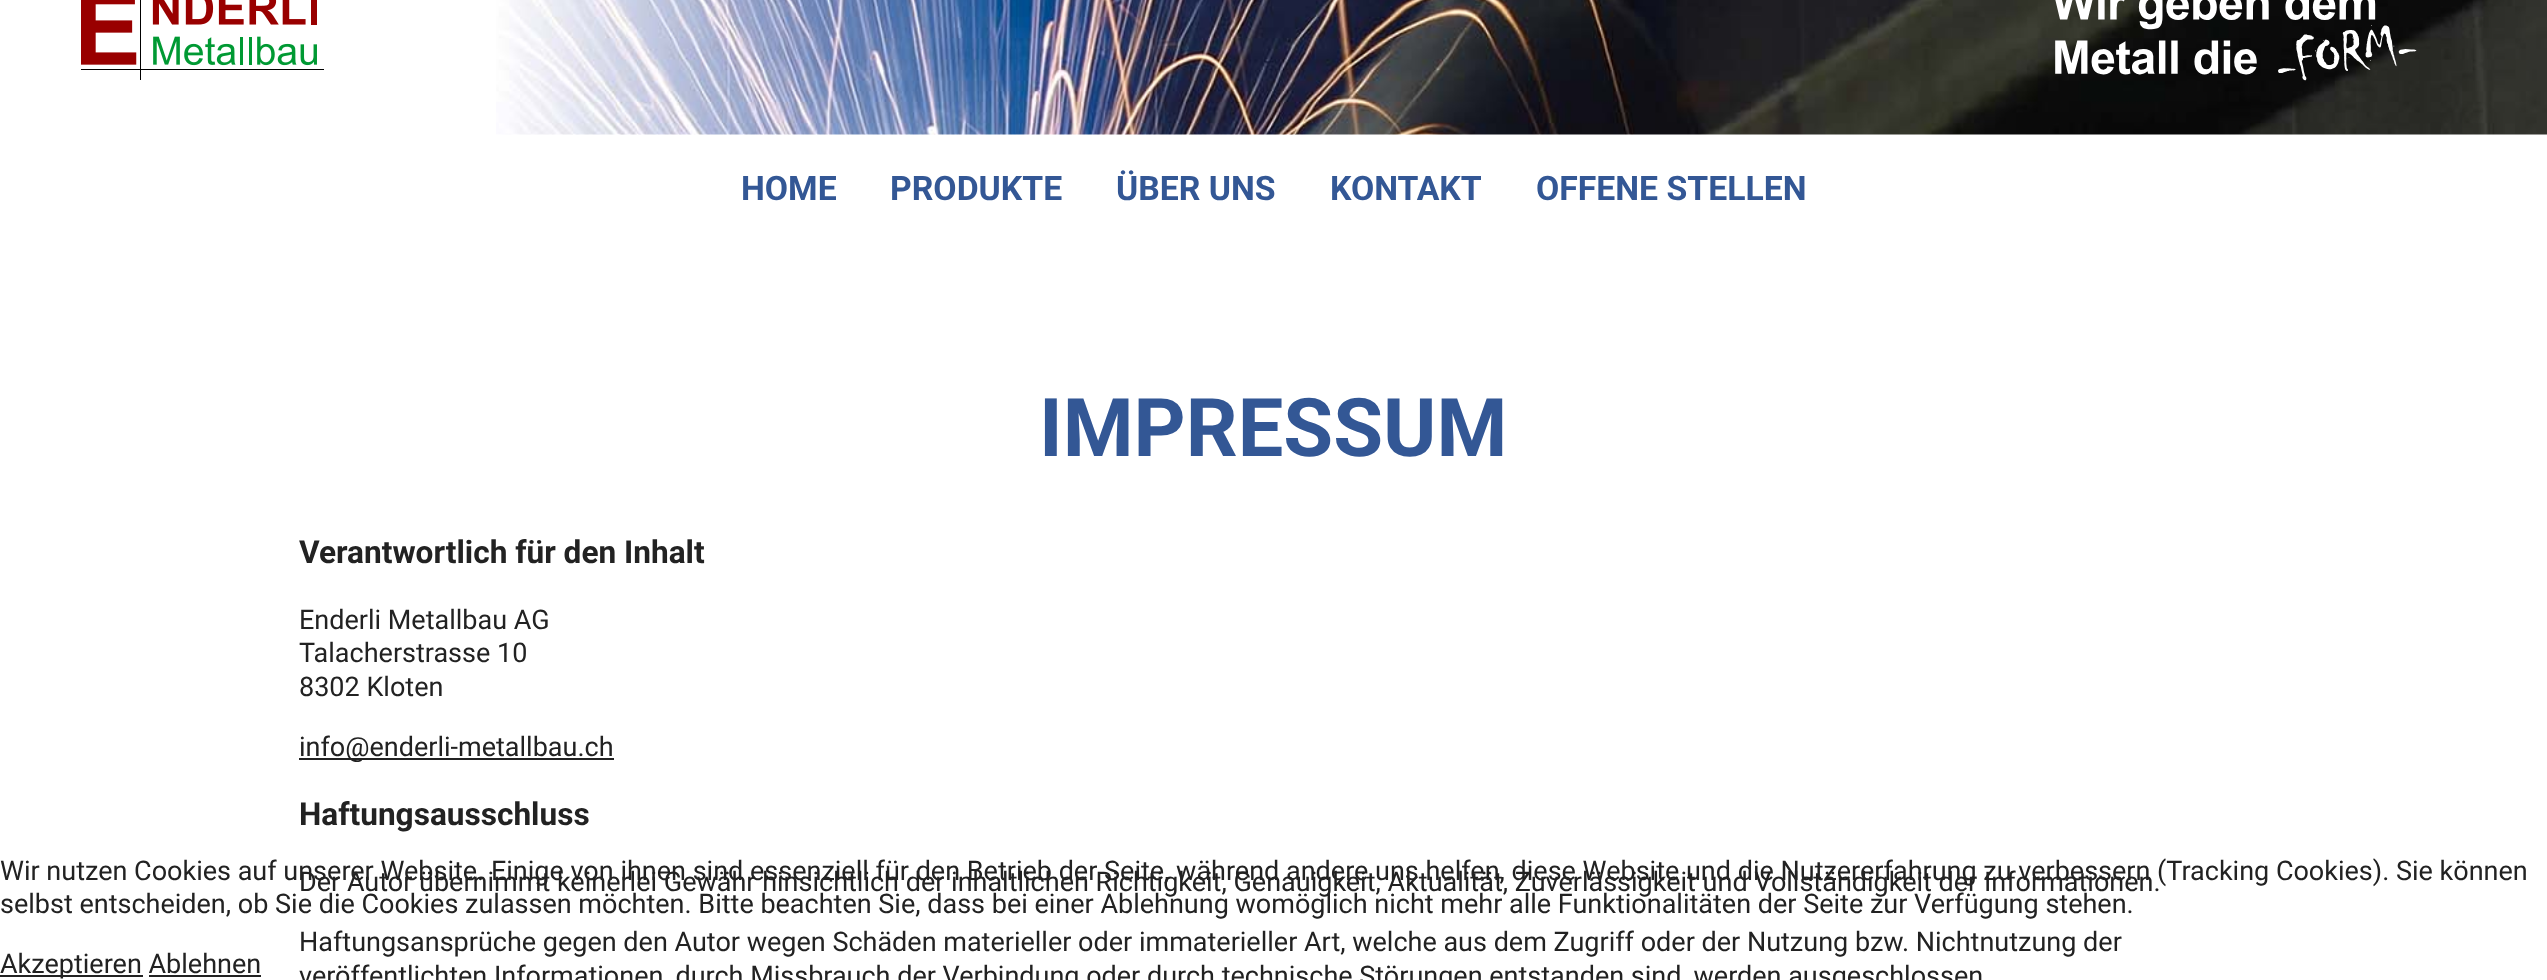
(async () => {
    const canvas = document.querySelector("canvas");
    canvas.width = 2547;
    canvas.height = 980;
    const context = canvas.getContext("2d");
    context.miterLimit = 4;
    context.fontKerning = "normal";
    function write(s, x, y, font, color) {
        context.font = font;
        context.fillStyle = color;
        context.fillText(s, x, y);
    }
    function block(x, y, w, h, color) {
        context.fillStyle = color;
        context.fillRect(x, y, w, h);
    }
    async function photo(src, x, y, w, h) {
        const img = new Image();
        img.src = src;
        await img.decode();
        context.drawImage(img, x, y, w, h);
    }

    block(0, 0, 2547, 980, "rgb(255, 255, 255)");
    await photo("media/1.png", 496, 0, 2051, 135);
    await photo("media/2.png", 81, 0, 243, 80);
    await photo("media/3.png", 2055, 0, 362, 81);
    write("HOME", 741, 200, "bold 33.75px Roboto", "rgb(51, 87, 149)");
    write("PRODUKTE", 890, 200, "bold 33.75px Roboto", "rgb(51, 87, 149)");
    write("ÜBER UNS", 1116, 200, "bold 33.75px Roboto", "rgb(51, 87, 149)");
    write("KONTAKT", 1330, 200, "bold 33.75px Roboto", "rgb(51, 87, 149)");
    write("OFFENE STELLEN", 1536, 200, "bold 33.75px Roboto", "rgb(51, 87, 149)");
    write("IMPRESSUM", 1039, 456, "bold 81px Roboto", "rgb(51, 87, 149)");
    write("Verantwortlich für den Inhalt", 299, 563, "bold 31.6px Roboto", "rgb(34, 34, 34)");
    write("Enderli Metallbau AG", 299, 629, "27px Roboto", "rgb(34, 34, 34)");
    write("Talacherstrasse 10", 299, 662, "27px Roboto", "rgb(34, 34, 34)");
    write("8302 Kloten", 299, 696, "27px Roboto", "rgb(34, 34, 34)");
    block(299, 758, 315, 2, "rgb(34, 34, 34)");
    write("info@enderli-metallbau.ch", 299, 756, "27px Roboto", "rgb(34, 34, 34)");
    write("Haftungsausschluss", 299, 825, "bold 31.6px Roboto", "rgb(34, 34, 34)");
    write("Der Autor übernimmt keinerlei Gewähr hinsichtlich der inhaltlichen Richtigkeit, Genauigkeit, Aktualität, Zuverlässigkeit und Vollständigkeit der Informationen.", 299, 891, "27px Roboto", "rgb(34, 34, 34)");
    write("Haftungsansprüche gegen den Autor wegen Schäden materieller oder immaterieller Art, welche aus dem Zugriff oder der Nutzung bzw. Nichtnutzung der", 299, 951, "27px Roboto", "rgb(34, 34, 34)");
    write("veröffentlichten Informationen, durch Missbrauch der Verbindung oder durch technische Störungen entstanden sind, werden ausgeschlossen", 299, 985, "27px Roboto", "rgb(34, 34, 34)");
    write("Wir nutzen Cookies auf unserer Website. Einige von ihnen sind essenziell für den Betrieb der Seite, während andere uns helfen, diese Website und die Nutzererfahrung zu verbessern (Tracking Cookies). Sie können", 0, 880, "27px Roboto", "rgb(34, 34, 34)");
    write("selbst entscheiden, ob Sie die Cookies zulassen möchten. Bitte beachten Sie, dass bei einer Ablehnung womöglich nicht mehr alle Funktionalitäten der Seite zur Verfügung stehen.", 0, 913, "27px Roboto", "rgb(34, 34, 34)");
    block(0, 975, 143, 2, "rgb(34, 34, 34)");
    write("Akzeptieren Ablehnen", 0, 973, "27px Roboto", "rgb(34, 34, 34)");
    block(149, 975, 112, 2, "rgb(34, 34, 34)");
})();
